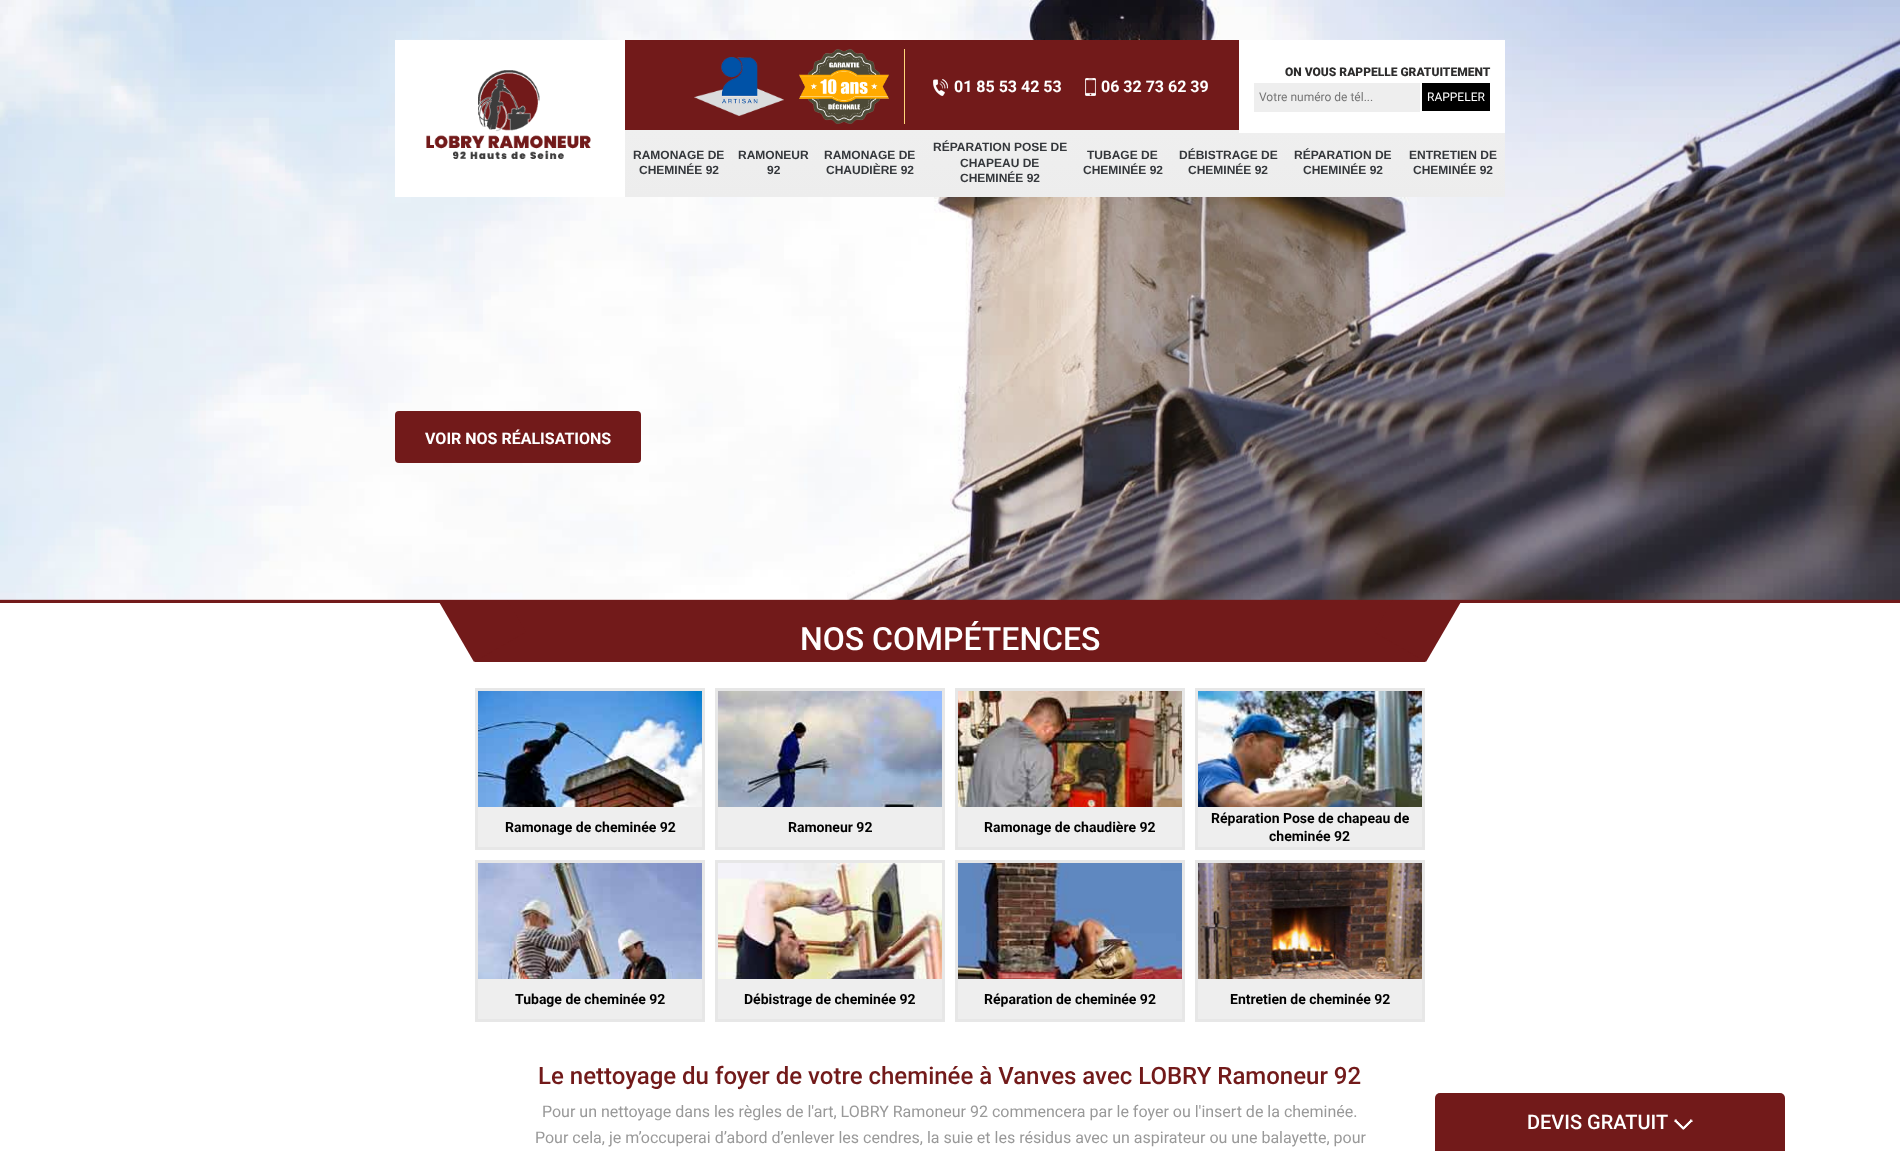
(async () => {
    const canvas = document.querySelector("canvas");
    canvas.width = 1900;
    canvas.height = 1151;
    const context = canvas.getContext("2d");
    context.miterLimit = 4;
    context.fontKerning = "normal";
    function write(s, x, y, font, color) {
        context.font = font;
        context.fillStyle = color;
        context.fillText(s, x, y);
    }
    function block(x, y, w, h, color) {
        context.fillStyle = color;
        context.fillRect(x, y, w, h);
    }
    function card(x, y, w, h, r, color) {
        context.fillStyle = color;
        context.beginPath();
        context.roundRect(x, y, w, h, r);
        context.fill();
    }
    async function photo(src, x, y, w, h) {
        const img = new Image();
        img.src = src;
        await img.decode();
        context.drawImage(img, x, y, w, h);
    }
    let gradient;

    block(0, 0, 1900, 1151, "rgb(255, 255, 255)");
    block(0, 599, 1900, 4, "rgb(114, 26, 26)");
    block(475, 603, 950, 59, "rgb(114, 26, 26)");
    context.beginPath();
    context.moveTo(476, 546);
    context.lineTo(526, 632);
    context.lineTo(474, 662);
    context.lineTo(424, 576);
    context.closePath();
    context.fill();
    context.beginPath();
    context.moveTo(1374, 632);
    context.lineTo(1424, 546);
    context.lineTo(1476, 576);
    context.lineTo(1426, 662);
    context.closePath();
    context.fill();
    await photo("media/6.png", 0, 0, 1900, 600);
    block(395, 40, 230, 157, "rgb(255, 255, 255)");
    await photo("media/1.png", 426, 70, 165, 89);
    block(625, 40, 614, 90, "rgb(114, 26, 26)");
    block(904, 49, 1, 75, "rgb(255, 214, 120)");
    await photo("media/2.png", 694, 57, 90, 59);
    await photo("media/3.png", 799, 49, 90, 75);
    await photo("media/4.png", 933, 79, 15, 17);
    write("01 85 53 42 53", 954, 92, "bold 16px Roboto", "rgb(255, 255, 255)");
    await photo("media/5.png", 1085, 78, 11, 18);
    write("06 32 73 62 39", 1101, 92, "bold 16px Roboto", "rgb(255, 255, 255)");
    gradient = context.createLinearGradient(1065, 130, 1065, 197);
    gradient.addColorStop(0, "rgb(239, 239, 239)");
    gradient.addColorStop(1, "rgb(237, 237, 237)");
    context.fillStyle = gradient;
    context.fillRect(625, 130, 880, 67);
    block(1239, 40, 266, 93, "rgb(255, 255, 255)");
    write("ON VOUS RAPPELLE GRATUITEMENT", 1285, 76, "900 12px Roboto", "rgb(45, 44, 44)");
    block(1254, 83, 166, 29, "rgb(238, 238, 238)");
    write("Votre numéro de tél...", 1259, 101, "12px Roboto", "rgb(117, 117, 117)");
    block(1422, 83, 68, 28, "rgb(0, 0, 0)");
    write("RAPPELER", 1427, 101, "12px Roboto", "rgb(255, 255, 255)");
    write("RAMONAGE DE", 633, 159, "bold 12px Liberation Sans", "rgb(52, 55, 59)");
    write("CHEMINÉE 92", 639, 174, "bold 12px Liberation Sans", "rgb(52, 55, 59)");
    write("RAMONEUR", 738, 159, "bold 12px Liberation Sans", "rgb(52, 55, 59)");
    write("92", 767, 174, "bold 12px Liberation Sans", "rgb(52, 55, 59)");
    write("RAMONAGE DE", 824, 159, "bold 12px Liberation Sans", "rgb(52, 55, 59)");
    write("CHAUDIÈRE 92", 826, 174, "bold 12px Liberation Sans", "rgb(52, 55, 59)");
    write("RÉPARATION POSE DE", 933, 151, "bold 12px Liberation Sans", "rgb(52, 55, 59)");
    write("CHAPEAU DE", 960, 167, "bold 12px Liberation Sans", "rgb(52, 55, 59)");
    write("CHEMINÉE 92", 960, 182, "bold 12px Liberation Sans", "rgb(52, 55, 59)");
    write("TUBAGE DE", 1087, 159, "bold 12px Liberation Sans", "rgb(52, 55, 59)");
    write("CHEMINÉE 92", 1083, 174, "bold 12px Liberation Sans", "rgb(52, 55, 59)");
    write("DÉBISTRAGE DE", 1179, 159, "bold 12px Liberation Sans", "rgb(52, 55, 59)");
    write("CHEMINÉE 92", 1188, 174, "bold 12px Liberation Sans", "rgb(52, 55, 59)");
    write("RÉPARATION DE", 1294, 159, "bold 12px Liberation Sans", "rgb(52, 55, 59)");
    write("CHEMINÉE 92", 1303, 174, "bold 12px Liberation Sans", "rgb(52, 55, 59)");
    write("ENTRETIEN DE", 1409, 159, "bold 12px Liberation Sans", "rgb(52, 55, 59)");
    write("CHEMINÉE 92", 1413, 174, "bold 12px Liberation Sans", "rgb(52, 55, 59)");
    card(395, 411, 246, 52, 4, "rgb(114, 26, 26)");
    write("VOIR NOS RÉALISATIONS", 425, 444, "bold 16px Roboto", "rgb(255, 255, 255)");
    write("NOS COMPÉTENCES", 800, 650, "500 32px Roboto", "rgb(255, 255, 255)");
    await photo("media/7.png", 478, 691, 224, 116);
    context.strokeStyle = "rgb(231, 231, 231)";
    context.lineWidth = 3;
    context.strokeRect(476.5, 689.5, 227, 159);
    block(478, 807, 224, 40, "rgb(238, 238, 238)");
    write("Ramonage de cheminée 92", 505, 832, "bold 14px Roboto", "rgb(0, 0, 0)");
    await photo("media/8.png", 718, 691, 224, 116);
    context.strokeRect(716.5, 689.5, 227, 159);
    block(718, 807, 224, 40, "rgb(238, 238, 238)");
    write("Ramoneur 92", 788, 832, "bold 14px Roboto", "rgb(0, 0, 0)");
    await photo("media/9.png", 958, 691, 224, 116);
    context.strokeRect(956.5, 689.5, 227, 159);
    block(958, 807, 224, 40, "rgb(238, 238, 238)");
    write("Ramonage de chaudière 92", 984, 832, "bold 14px Roboto", "rgb(0, 0, 0)");
    await photo("media/10.png", 1198, 691, 224, 116);
    context.strokeRect(1196.5, 689.5, 227, 159);
    block(1198, 807, 224, 40, "rgb(238, 238, 238)");
    write("Réparation Pose de chapeau de", 1211, 823, "bold 14px Roboto", "rgb(0, 0, 0)");
    write("cheminée 92", 1269, 841, "bold 14px Roboto", "rgb(0, 0, 0)");
    await photo("media/11.png", 478, 863, 224, 116);
    context.strokeRect(476.5, 861.5, 227, 159);
    block(478, 979, 224, 40, "rgb(238, 238, 238)");
    write("Tubage de cheminée 92", 515, 1004, "bold 14px Roboto", "rgb(0, 0, 0)");
    await photo("media/12.png", 718, 863, 224, 116);
    context.strokeRect(716.5, 861.5, 227, 159);
    block(718, 979, 224, 40, "rgb(238, 238, 238)");
    write("Débistrage de cheminée 92", 744, 1004, "bold 14px Roboto", "rgb(0, 0, 0)");
    await photo("media/13.png", 958, 863, 224, 116);
    context.strokeRect(956.5, 861.5, 227, 159);
    block(958, 979, 224, 40, "rgb(238, 238, 238)");
    write("Réparation de cheminée 92", 984, 1004, "bold 14px Roboto", "rgb(0, 0, 0)");
    await photo("media/14.png", 1198, 863, 224, 116);
    context.strokeRect(1196.5, 861.5, 227, 159);
    block(1198, 979, 224, 40, "rgb(238, 238, 238)");
    write("Entretien de cheminée 92", 1230, 1004, "bold 14px Roboto", "rgb(0, 0, 0)");
    write("Le nettoyage du foyer de votre cheminée à Vanves avec LOBRY Ramoneur 92", 538, 1084, "500 24px Roboto", "rgb(114, 26, 26)");
    write("Pour un nettoyage dans les règles de l'art, LOBRY Ramoneur 92 commencera par le foyer ou l'insert de la cheminée.", 542, 1117, "16px Roboto", "rgb(153, 153, 153)");
    write("Pour cela, je m’occuperai d’abord d’enlever les cendres, la suie et les résidus avec un aspirateur ou une balayette, pour", 535, 1143, "16px Roboto", "rgb(153, 153, 153)");
    context.fillStyle = "rgb(114, 26, 26)";
    context.beginPath();
    context.roundRect(1435, 1093, 350, 58, [5, 5, 0, 0]);
    context.fill();
    write("DEVIS GRATUIT", 1527, 1129, "500 20px Roboto", "rgb(255, 255, 255)");
    await photo("media/15.png", 1674, 1119, 19, 11);
})();
